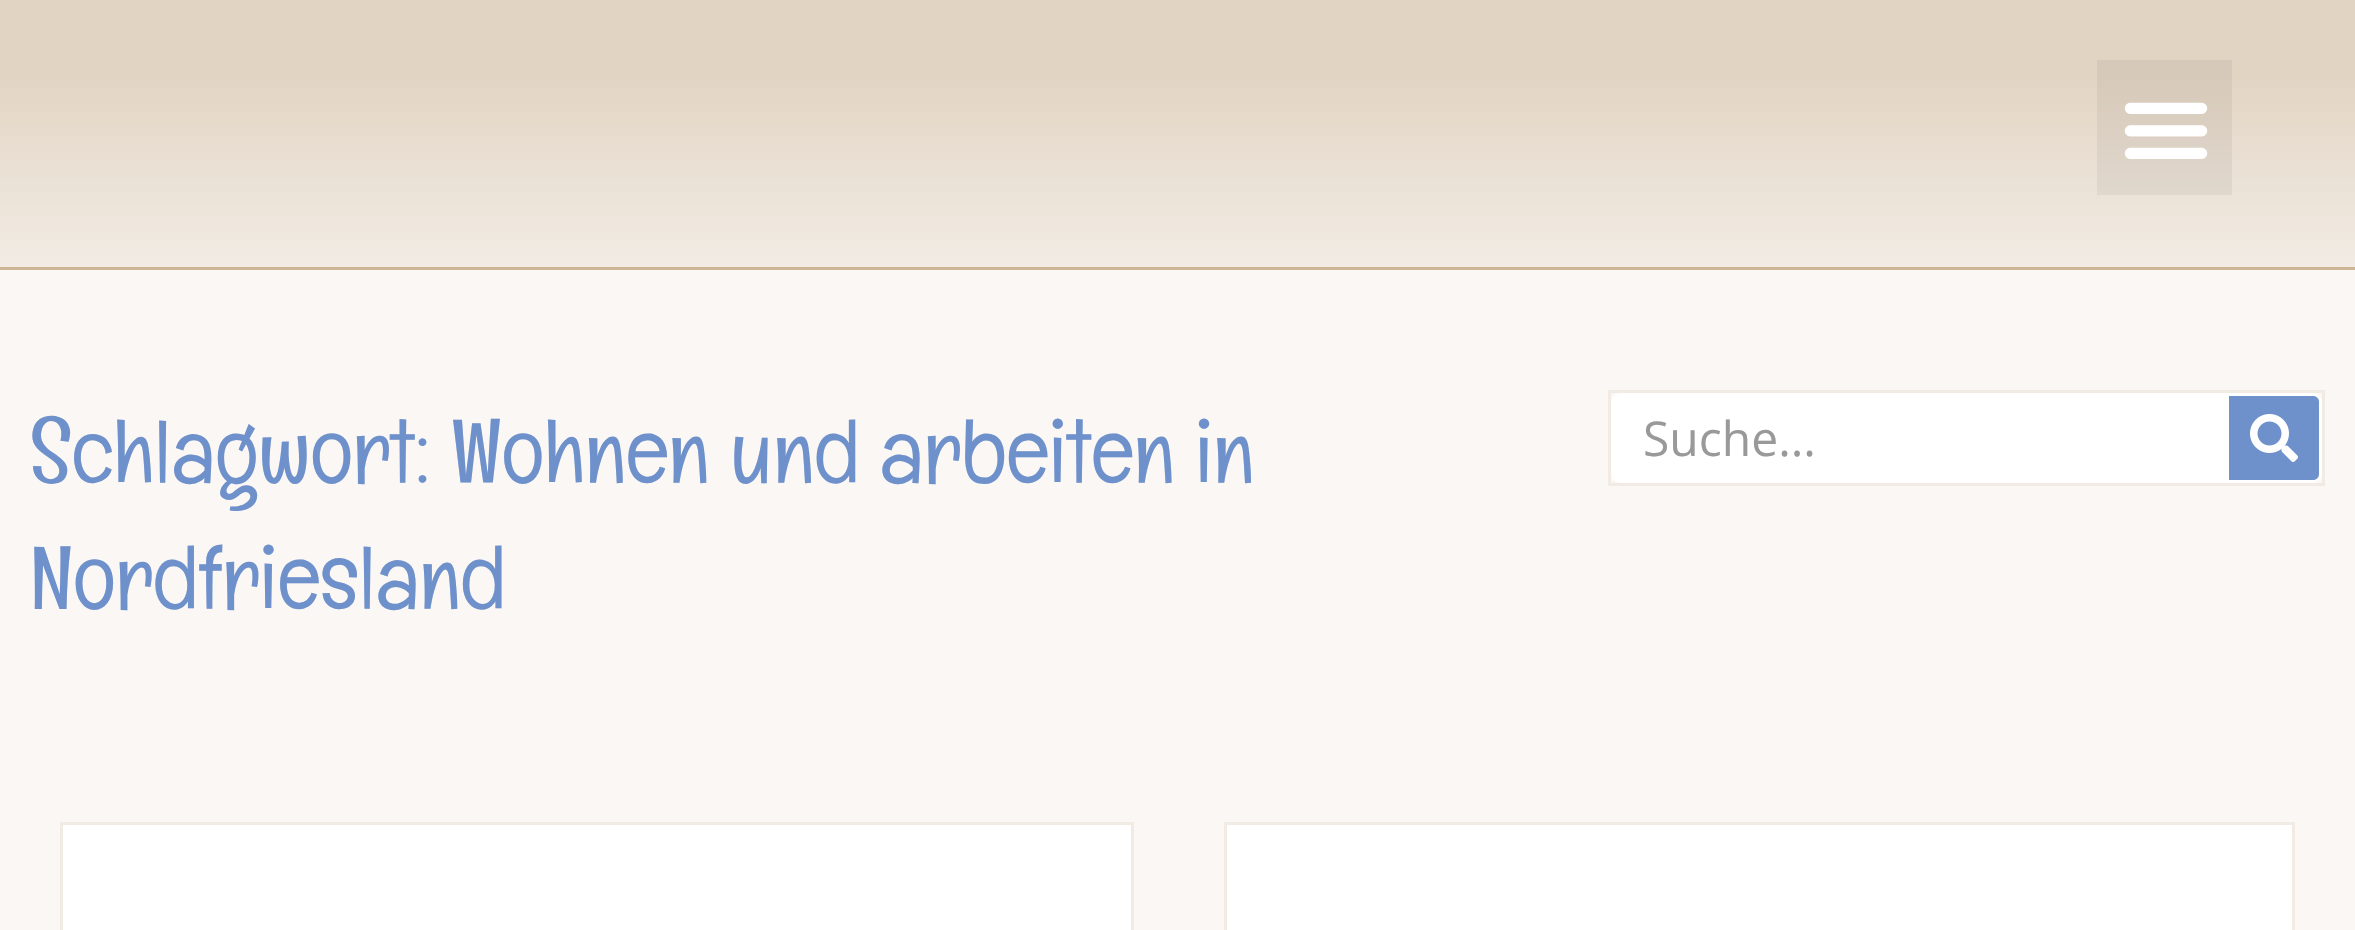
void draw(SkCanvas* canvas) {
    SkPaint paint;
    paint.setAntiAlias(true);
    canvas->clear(0xFFFAF7F4);
    {
        const SkColor colors[] = {0xFFE2D4C3, 0xFFF1EBE3};
        const float stops[] = {0.28f, 0.97f};
        const SkPoint ends[] = {{1178, 0}, {1178, 267}};
        paint.setShader(SkGradientShader::MakeLinear(ends, colors, stops, 2, SkTileMode::kClamp));
        paint.setAlpha(255);
    }
    canvas->drawRect(SkRect::MakeXYWH(0, 0, 2355, 267), paint);
    {
        const SkColor colors[] = {0xFFD7C9B9, 0xFFE5DFD8};
        const float stops[] = {0.28f, 0.97f};
        const SkPoint ends[] = {{1178, 0}, {1178, 267}};
        paint.setShader(SkGradientShader::MakeLinear(ends, colors, stops, 2, SkTileMode::kClamp));
        paint.setAlpha(255);
    }
    canvas->drawRect(SkRect::MakeXYWH(2097, 60, 135, 135), paint);
    paint.setShader(nullptr);
    paint.setColor(0xFFCDB598);
    canvas->drawRect(SkRect::MakeXYWH(0, 267, 2355, 3), paint);
    canvas->drawImageRect(SkImages::DeferredFromEncodedData(SkData::MakeFromFileName("img1.png")), SkRect::MakeXYWH(2124, 102, 84, 57), SkSamplingOptions());
    SkFont font1(fontMgr->matchFamilyStyle("Englebert", SkFontStyle::Normal()), 90);
    font1.setSubpixel(true);
    paint.setColor(0xFF6F91CB);
    canvas->drawString("Schlagwort: Wohnen und arbeiten in", 30, 483, font1, paint);
    canvas->drawString("Nordfriesland", 30, 609, font1, paint);
    paint.setStyle(SkPaint::kStroke_Style);
    paint.setStrokeWidth(3);
    paint.setColor(0xFFF1EBE3);
    canvas->drawRect(SkRect::MakeXYWH(1609.5f, 391.5f, 714, 93), paint);
    paint.setStyle(SkPaint::kFill_Style);
    paint.setColor(0xFFFFFFFF);
    canvas->drawRoundRect(SkRect::MakeXYWH(1611, 393, 711, 90), 9, 9, paint);
    SkFont font2(fontMgr->matchFamilyStyle("Open Sans", SkFontStyle::Normal()), 48);
    font2.setSubpixel(true);
    paint.setColor(0xFF999999);
    canvas->drawString("Suche...", 1643, 456, font2, paint);
    paint.setColor(0xFF6F91CB);
    canvas->drawPath(SkPathBuilder().moveTo(2229, 396).lineTo(2313, 396).cubicTo(2316.5f, 396, 2319, 398.5f, 2319, 402).lineTo(2319, 474).cubicTo(2319, 477.5f, 2316.5f, 480, 2313, 480).lineTo(2229, 480).close().detach(), paint);
    canvas->drawImageRect(SkImages::DeferredFromEncodedData(SkData::MakeFromFileName("img2.png")), SkRect::MakeXYWH(2250, 414, 48, 48), SkSamplingOptions());
    paint.setColor(0xFFFFFFFF);
    canvas->drawRect(SkRect::MakeXYWH(61.5f, 823.5f, 1071, 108), paint);
    paint.setStyle(SkPaint::kStroke_Style);
    paint.setColor(0xFFF1EBE3);
    canvas->drawRect(SkRect::MakeXYWH(61.5f, 823.5f, 1071, 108), paint);
    paint.setStyle(SkPaint::kFill_Style);
    paint.setColor(0xFFFFFFFF);
    canvas->drawRect(SkRect::MakeXYWH(1225.5f, 823.5f, 1068, 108), paint);
    paint.setStyle(SkPaint::kStroke_Style);
    paint.setColor(0xFFF1EBE3);
    canvas->drawRect(SkRect::MakeXYWH(1225.5f, 823.5f, 1068, 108), paint);
}
